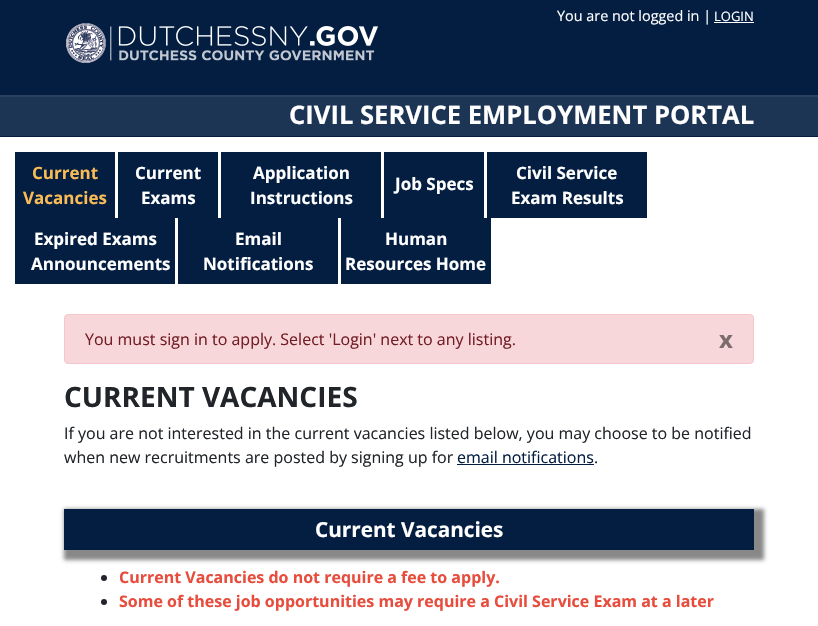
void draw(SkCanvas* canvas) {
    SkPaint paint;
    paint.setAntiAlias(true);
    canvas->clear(0xFFFFFFFF);
    paint.setColor(0xFF041E42);
    canvas->drawRect(SkRect::MakeXYWH(0, 0, 818, 137), paint);
    SkFont font1(fontMgr->matchFamilyStyle("Open Sans", SkFontStyle::Normal()), 14.4f);
    font1.setSubpixel(true);
    paint.setColor(0xFFFFFFFF);
    canvas->drawString("You are not logged in |", 557, 21, font1, paint);
    SkFont font2(fontMgr->matchFamilyStyle("Open Sans", SkFontStyle::Normal()), 13);
    font2.setSubpixel(true);
    canvas->drawString("LOGIN", 714, 21, font2, paint);
    canvas->drawRect(SkRect::MakeXYWH(714, 22, 40, 1), paint);
    canvas->drawImageRect(SkImages::DeferredFromEncodedData(SkData::MakeFromFileName("img1.png")), SkRect::MakeXYWH(66, 23, 312, 40), SkSamplingOptions());
    paint.setColor(0xFF1D3555);
    canvas->drawRect(SkRect::MakeXYWH(0, 97, 818, 39), paint);
    paint.setColor(0xFF2B405E);
    canvas->drawRect(SkRect::MakeXYWH(0, 95, 818, 2), paint);
    SkFont font3(fontMgr->matchFamilyStyle("Open Sans", SkFontStyle::Bold()), 25.6f);
    font3.setSubpixel(true);
    paint.setColor(0xFFFFFFFF);
    canvas->drawString("CIVIL SERVICE EMPLOYMENT PORTAL", 289, 124, font3, paint);
    paint.setColor(0xFF041E42);
    canvas->drawRect(SkRect::MakeXYWH(15, 152, 100, 66), paint);
    SkFont font4(fontMgr->matchFamilyStyle("Open Sans", SkFontStyle::Bold()), 17);
    font4.setSubpixel(true);
    paint.setColor(0xFFF9BB56);
    canvas->drawString("Current", 32, 179, font4, paint);
    canvas->drawString("Vacancies", 23, 204, font4, paint);
    paint.setColor(0xFF041E42);
    canvas->drawRect(SkRect::MakeXYWH(118, 152, 100, 66), paint);
    paint.setColor(0xFFFFFFFF);
    canvas->drawString("Current", 135, 179, font4, paint);
    canvas->drawString("Exams", 141, 204, font4, paint);
    paint.setColor(0xFF041E42);
    canvas->drawRect(SkRect::MakeXYWH(221, 152, 160, 66), paint);
    paint.setColor(0xFFFFFFFF);
    canvas->drawString("Application", 253, 179, font4, paint);
    canvas->drawString("Instructions", 250, 204, font4, paint);
    paint.setColor(0xFF041E42);
    canvas->drawRect(SkRect::MakeXYWH(384, 152, 100, 66), paint);
    paint.setColor(0xFFFFFFFF);
    canvas->drawString("Job Specs", 395, 190, font4, paint);
    paint.setColor(0xFF041E42);
    canvas->drawRect(SkRect::MakeXYWH(487, 152, 160, 66), paint);
    paint.setColor(0xFFFFFFFF);
    canvas->drawString("Civil Service", 516, 179, font4, paint);
    canvas->drawString("Exam Results", 511, 204, font4, paint);
    paint.setColor(0xFF041E42);
    canvas->drawRect(SkRect::MakeXYWH(15, 218, 160, 66), paint);
    paint.setColor(0xFFFFFFFF);
    canvas->drawString("Expired Exams", 34, 245, font4, paint);
    canvas->drawString("Announcements", 31, 270, font4, paint);
    paint.setColor(0xFF041E42);
    canvas->drawRect(SkRect::MakeXYWH(178, 218, 160, 66), paint);
    paint.setColor(0xFFFFFFFF);
    canvas->drawString("Email", 235, 245, font4, paint);
    canvas->drawString("Notifications", 203, 270, font4, paint);
    paint.setColor(0xFF041E42);
    canvas->drawRect(SkRect::MakeXYWH(341, 218, 150, 66), paint);
    paint.setColor(0xFFFFFFFF);
    canvas->drawString("Human", 385, 245, font4, paint);
    canvas->drawString("Resources Home", 345, 270, font4, paint);
    paint.setColor(0xFFF8D7DA);
    canvas->drawRoundRect(SkRect::MakeXYWH(64.5f, 314.5f, 689, 49), 3.5f, 3.5f, paint);
    paint.setStyle(SkPaint::kStroke_Style);
    paint.setStrokeWidth(1);
    paint.setColor(0xFFF5C6CB);
    canvas->drawRoundRect(SkRect::MakeXYWH(64.5f, 314.5f, 689, 49), 3.5f, 3.5f, paint);
    SkFont font5(fontMgr->matchFamilyStyle("Open Sans", SkFontStyle::Normal()), 16);
    font5.setSubpixel(true);
    paint.setStyle(SkPaint::kFill_Style);
    paint.setColor(0xFF721C24);
    canvas->drawString("You must sign in to apply. Select 'Login' next to any listing.", 85, 345, font5, paint);
    SkFont font6(fontMgr->matchFamilyStyle("Open Sans", SkFontStyle::Bold()), 24);
    font6.setSubpixel(true);
    paint.setColor(0xFF7C6C6D);
    canvas->drawString("x", 719, 348, font6, paint);
    SkFont font7(fontMgr->matchFamilyStyle("Open Sans", SkFontStyle::Bold()), 28);
    font7.setSubpixel(true);
    paint.setColor(0xFF212529);
    canvas->drawString("CURRENT VACANCIES", 64, 407, font7, paint);
    canvas->drawString("If you are not interested in the current vacancies listed below, you may choose to be notified", 64, 439, font5, paint);
    canvas->drawString("when new recruitments are posted by signing up for", 64, 463, font5, paint);
    paint.setColor(0xFF041E42);
    canvas->drawString("email notifications", 457, 463, font5, paint);
    canvas->drawRect(SkRect::MakeXYWH(457, 464, 137, 1), paint);
    paint.setColor(0xFF212529);
    canvas->drawString(".", 594, 463, font5, paint);
    paint.setColor(0xFF888888);
    paint.setMaskFilter(SkMaskFilter::MakeBlur(kNormal_SkBlurStyle, 2));
    canvas->drawRect(SkRect::MakeXYWH(64, 509, 700, 51), paint);
    paint.setMaskFilter(nullptr);
    paint.setColor(0xFF041E42);
    canvas->drawRect(SkRect::MakeXYWH(64, 509, 690, 41), paint);
    SkFont font8(fontMgr->matchFamilyStyle("Open Sans", SkFontStyle::Bold()), 20.75f);
    font8.setSubpixel(true);
    paint.setColor(0xFFFFFFFF);
    canvas->drawString("Current Vacancies", 315, 537, font8, paint);
    paint.setColor(0xFF212529);
    canvas->drawCircle(104, 578, 3, paint);
    SkFont font9(fontMgr->matchFamilyStyle("Open Sans", SkFontStyle::Bold()), 16);
    font9.setSubpixel(true);
    paint.setColor(0xFFE74C3C);
    canvas->drawString("Current Vacancies do not require a fee to apply.", 119, 583, font9, paint);
    paint.setColor(0xFF212529);
    canvas->drawCircle(104, 602, 3, paint);
    paint.setColor(0xFFE74C3C);
    canvas->drawString("Some of these job opportunities may require a Civil Service Exam at a later", 119, 607, font9, paint);
}
